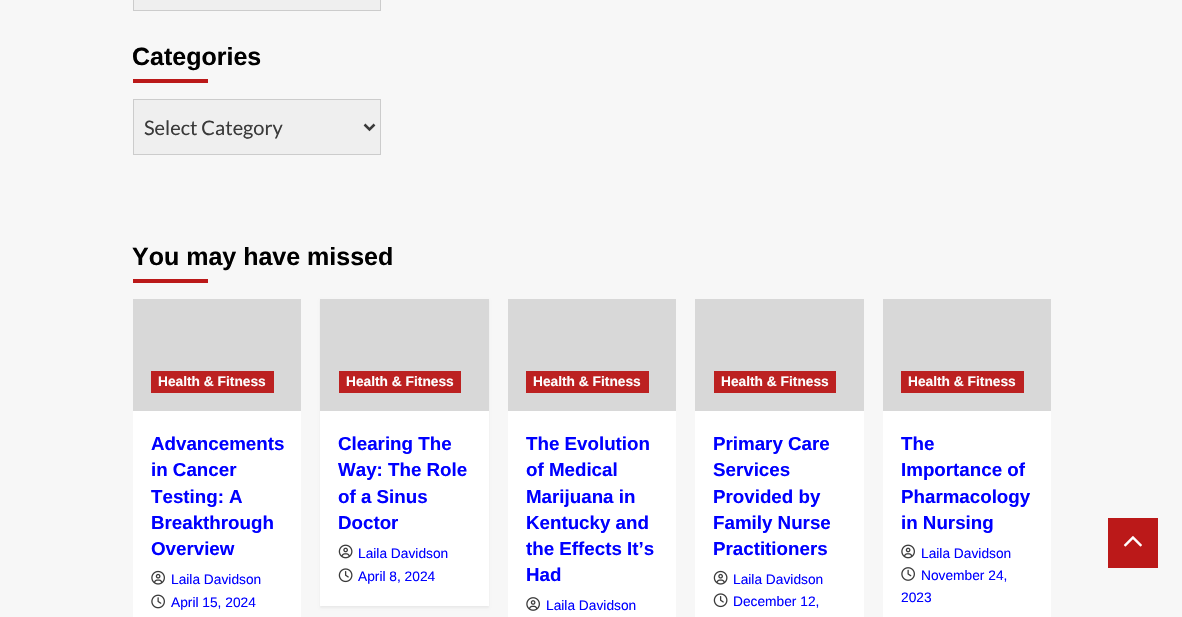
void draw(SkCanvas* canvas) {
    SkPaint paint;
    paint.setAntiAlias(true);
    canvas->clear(0xFFF7F7F7);
    paint.setColor(0xFFEFEFEF);
    canvas->drawRect(SkRect::MakeXYWH(133.5f, -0.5f, 247, 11), paint);
    paint.setStyle(SkPaint::kStroke_Style);
    paint.setStrokeWidth(1);
    paint.setColor(0xFFCCCCCC);
    canvas->drawRect(SkRect::MakeXYWH(133.5f, -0.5f, 247, 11), paint);
    SkFont font1(fontMgr->matchFamilyStyle("Liberation Sans", SkFontStyle::Bold()), 25);
    font1.setSubpixel(true);
    paint.setStyle(SkPaint::kFill_Style);
    paint.setColor(0xFF000000);
    canvas->drawString("Categories", 132, 65, font1, paint);
    paint.setColor(0xFFBB1919);
    canvas->drawRect(SkRect::MakeXYWH(133, 79, 75, 4), paint);
    paint.setColor(0xFFEFEFEF);
    canvas->drawRect(SkRect::MakeXYWH(133.5f, 99.5f, 247, 55), paint);
    paint.setStyle(SkPaint::kStroke_Style);
    paint.setColor(0xFFCCCCCC);
    canvas->drawRect(SkRect::MakeXYWH(133.5f, 99.5f, 247, 55), paint);
    paint.setStrokeWidth(2.5f);
    paint.setColor(0xFF3A3A3A);
    canvas->drawPath(SkPathBuilder().moveTo(364.5f, 124.5f).lineTo(369.5f, 129.5f).lineTo(374.5f, 124.5f).detach(), paint);
    SkFont font2(fontMgr->matchFamilyStyle("Lato", SkFontStyle::Normal()), 20);
    font2.setSubpixel(true);
    paint.setStyle(SkPaint::kFill_Style);
    canvas->drawString("Select Category", 144, 135, font2, paint);
    paint.setColor(0xFF000000);
    canvas->drawString("You may have missed", 132, 265, font1, paint);
    paint.setColor(0xFFBB1919);
    canvas->drawRect(SkRect::MakeXYWH(133, 279, 75, 4), paint);
    paint.setColor(0xFFFFFFFF);
    canvas->drawRect(SkRect::MakeXYWH(133, 411, 168, 206), paint);
    paint.setColor(0xFFD8D8D8);
    canvas->drawRect(SkRect::MakeXYWH(133, 299, 168, 112), paint);
    paint.setColor(0xFFBC2121);
    canvas->drawRect(SkRect::MakeXYWH(151, 371, 123, 22), paint);
    SkFont font3(fontMgr->matchFamilyStyle("Liberation Sans", SkFontStyle::Bold()), 13.75f);
    font3.setSubpixel(true);
    paint.setColor(0xFFFDFDFD);
    canvas->drawString("Health & Fitness", 158, 386, font3, paint);
    SkFont font4(fontMgr->matchFamilyStyle("Liberation Sans", SkFontStyle::Bold()), 18.75f);
    font4.setSubpixel(true);
    paint.setColor(0xFF0000FF);
    canvas->drawString("Advancements", 151, 450, font4, paint);
    canvas->drawString("in Cancer", 151, 476, font4, paint);
    canvas->drawString("Testing: A", 151, 503, font4, paint);
    canvas->drawString("Breakthrough", 151, 529, font4, paint);
    canvas->drawString("Overview", 151, 555, font4, paint);
    canvas->drawImageRect(SkImages::DeferredFromEncodedData(SkData::MakeFromFileName("img1.png")), SkRect::MakeXYWH(151, 570, 14, 15), SkSamplingOptions());
    SkFont font5(fontMgr->matchFamilyStyle("Liberation Sans", SkFontStyle::Normal()), 13.75f);
    font5.setSubpixel(true);
    canvas->drawString("Laila Davidson", 171, 584, font5, paint);
    canvas->drawImageRect(SkImages::DeferredFromEncodedData(SkData::MakeFromFileName("img2.png")), SkRect::MakeXYWH(151, 594, 14, 15), SkSamplingOptions());
    canvas->drawString("April 15, 2024", 171, 607, font5, paint);
    paint.setColor(0x0D000000);
    paint.setMaskFilter(SkMaskFilter::MakeBlur(kNormal_SkBlurStyle, 1));
    canvas->drawRect(SkRect::MakeXYWH(320, 300, 169, 308), paint);
    paint.setMaskFilter(nullptr);
    paint.setColor(0xFFFFFFFF);
    canvas->drawRect(SkRect::MakeXYWH(320, 411, 169, 195), paint);
    paint.setColor(0xFFD8D8D8);
    canvas->drawRect(SkRect::MakeXYWH(320, 299, 169, 112), paint);
    paint.setColor(0xFFBC2121);
    canvas->drawRect(SkRect::MakeXYWH(339, 371, 122, 22), paint);
    paint.setColor(0xFFFDFDFD);
    canvas->drawString("Health & Fitness", 346, 386, font3, paint);
    paint.setColor(0xFF0000FF);
    canvas->drawString("Clearing The", 338, 450, font4, paint);
    canvas->drawString("Way: The Role", 338, 476, font4, paint);
    canvas->drawString("of a Sinus", 338, 503, font4, paint);
    canvas->drawString("Doctor", 338, 529, font4, paint);
    canvas->drawImageRect(SkImages::DeferredFromEncodedData(SkData::MakeFromFileName("img3.png")), SkRect::MakeXYWH(338, 544, 15, 15), SkSamplingOptions());
    canvas->drawString("Laila Davidson", 358, 558, font5, paint);
    canvas->drawImageRect(SkImages::DeferredFromEncodedData(SkData::MakeFromFileName("img4.png")), SkRect::MakeXYWH(338, 568, 15, 15), SkSamplingOptions());
    canvas->drawString("April 8, 2024", 358, 581, font5, paint);
    paint.setColor(0xFFFFFFFF);
    canvas->drawRect(SkRect::MakeXYWH(508, 411, 168, 206), paint);
    paint.setColor(0xFFD8D8D8);
    canvas->drawRect(SkRect::MakeXYWH(508, 299, 168, 112), paint);
    paint.setColor(0xFFBC2121);
    canvas->drawRect(SkRect::MakeXYWH(526, 371, 123, 22), paint);
    paint.setColor(0xFFFDFDFD);
    canvas->drawString("Health & Fitness", 533, 386, font3, paint);
    paint.setColor(0xFF0000FF);
    canvas->drawString("The Evolution", 526, 450, font4, paint);
    canvas->drawString("of Medical", 526, 476, font4, paint);
    canvas->drawString("Marijuana in", 526, 503, font4, paint);
    canvas->drawString("Kentucky and", 526, 529, font4, paint);
    canvas->drawString("the Effects It’s", 526, 555, font4, paint);
    canvas->drawString("Had", 526, 581, font4, paint);
    canvas->drawImageRect(SkImages::DeferredFromEncodedData(SkData::MakeFromFileName("img5.png")), SkRect::MakeXYWH(526, 597, 14, 14), SkSamplingOptions());
    canvas->drawString("Laila Davidson", 546, 610, font5, paint);
    paint.setColor(0xFFFFFFFF);
    canvas->drawRect(SkRect::MakeXYWH(695, 411, 169, 206), paint);
    paint.setColor(0xFFD8D8D8);
    canvas->drawRect(SkRect::MakeXYWH(695, 299, 169, 112), paint);
    paint.setColor(0xFFBC2121);
    canvas->drawRect(SkRect::MakeXYWH(714, 371, 122, 22), paint);
    paint.setColor(0xFFFDFDFD);
    canvas->drawString("Health & Fitness", 721, 386, font3, paint);
    paint.setColor(0xFF0000FF);
    canvas->drawString("Primary Care", 713, 450, font4, paint);
    canvas->drawString("Services", 713, 476, font4, paint);
    canvas->drawString("Provided by", 713, 503, font4, paint);
    canvas->drawString("Family Nurse", 713, 529, font4, paint);
    canvas->drawString("Practitioners", 713, 555, font4, paint);
    canvas->drawImageRect(SkImages::DeferredFromEncodedData(SkData::MakeFromFileName("img6.png")), SkRect::MakeXYWH(713, 570, 15, 15), SkSamplingOptions());
    canvas->drawString("Laila Davidson", 733, 584, font5, paint);
    canvas->drawImageRect(SkImages::DeferredFromEncodedData(SkData::MakeFromFileName("img4.png")), SkRect::MakeXYWH(713, 593, 15, 15), SkSamplingOptions());
    canvas->drawString("December 12,", 733, 606, font5, paint);
    paint.setColor(0xFFFFFFFF);
    canvas->drawRect(SkRect::MakeXYWH(883, 411, 168, 206), paint);
    paint.setColor(0xFFD8D8D8);
    canvas->drawRect(SkRect::MakeXYWH(883, 299, 168, 112), paint);
    paint.setColor(0xFFBC2121);
    canvas->drawRect(SkRect::MakeXYWH(901, 371, 123, 22), paint);
    paint.setColor(0xFFFDFDFD);
    canvas->drawString("Health & Fitness", 908, 386, font3, paint);
    paint.setColor(0xFF0000FF);
    canvas->drawString("The", 901, 450, font4, paint);
    canvas->drawString("Importance of", 901, 476, font4, paint);
    canvas->drawString("Pharmacology", 901, 503, font4, paint);
    canvas->drawString("in Nursing", 901, 529, font4, paint);
    canvas->drawImageRect(SkImages::DeferredFromEncodedData(SkData::MakeFromFileName("img7.png")), SkRect::MakeXYWH(901, 544, 14, 15), SkSamplingOptions());
    canvas->drawString("Laila Davidson", 921, 558, font5, paint);
    canvas->drawImageRect(SkImages::DeferredFromEncodedData(SkData::MakeFromFileName("img8.png")), SkRect::MakeXYWH(901, 567, 14, 14), SkSamplingOptions());
    canvas->drawString("November 24,", 921, 580, font5, paint);
    canvas->drawString("2023", 901, 602, font5, paint);
    paint.setColor(0xFFBB1919);
    canvas->drawRect(SkRect::MakeXYWH(1108, 518, 50, 50), paint);
    canvas->drawImageRect(SkImages::DeferredFromEncodedData(SkData::MakeFromFileName("img9.png")), SkRect::MakeXYWH(1123, 536, 19, 11), SkSamplingOptions());
}
